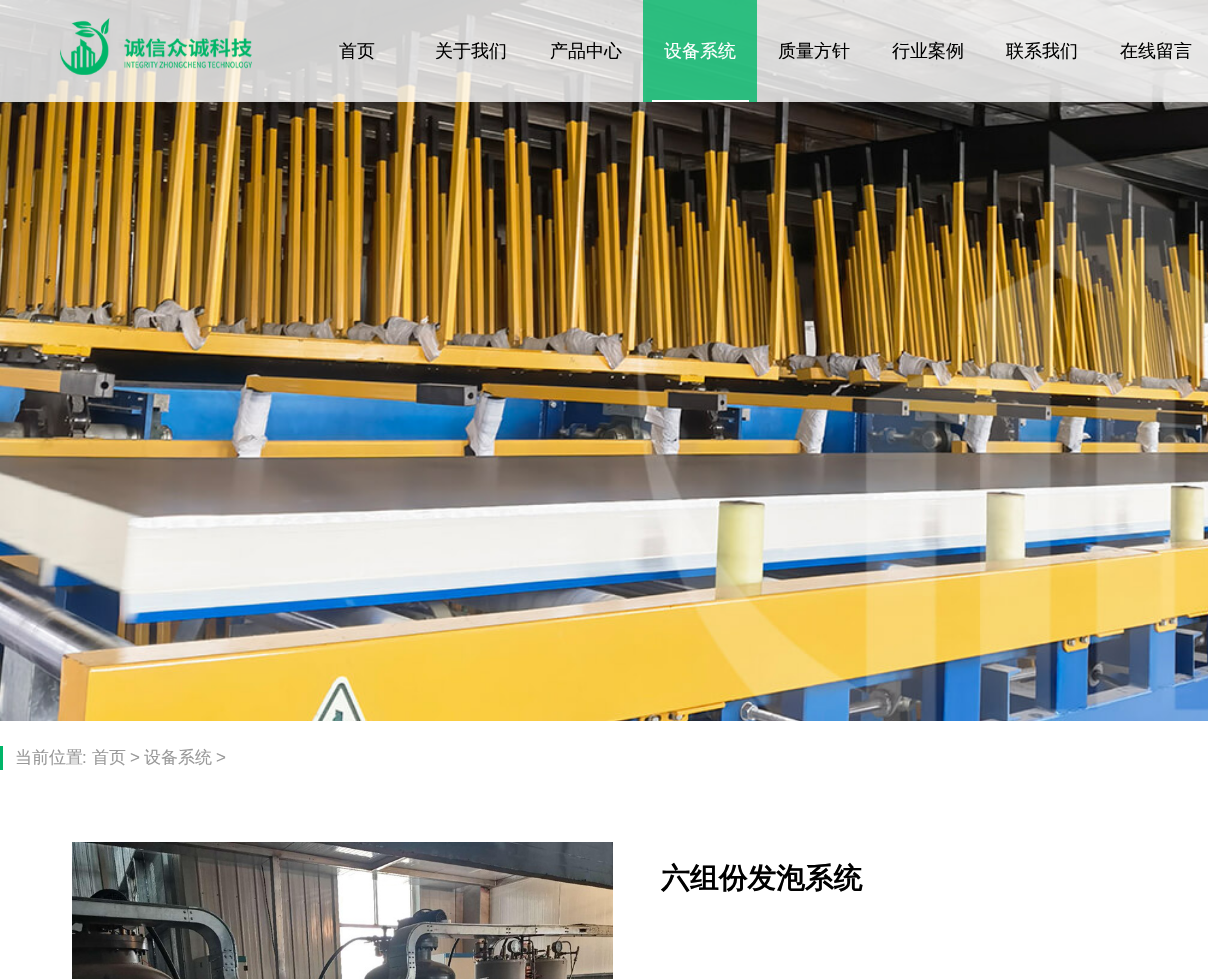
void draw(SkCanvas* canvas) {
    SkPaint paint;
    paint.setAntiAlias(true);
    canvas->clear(0xFFFFFFFF);
    canvas->drawImageRect(SkImages::DeferredFromEncodedData(SkData::MakeFromFileName("img2.png")), SkRect::MakeXYWH(0, 0, 1208, 721), SkSamplingOptions());
    paint.setColor(0xCCFFFFFF);
    canvas->drawRect(SkRect::MakeXYWH(0, 0, 1208, 102), paint);
    canvas->drawImageRect(SkImages::DeferredFromEncodedData(SkData::MakeFromFileName("img1.png")), SkRect::MakeXYWH(60, 18, 192, 57), SkSamplingOptions());
    SkFont font1(fontMgr->matchFamilyStyle("WenQuanYi Zen Hei", SkFontStyle(500, SkFontStyle::kNormal_Width, SkFontStyle::kUpright_Slant)), 18);
    font1.setSubpixel(true);
    paint.setColor(0xFF000000);
    canvas->drawString("首页", 339, 57, font1, paint);
    canvas->drawString("关于我们", 435, 57, font1, paint);
    canvas->drawString("产品中心", 550, 57, font1, paint);
    paint.setColor(0xCC00B568);
    canvas->drawRect(SkRect::MakeXYWH(643, 0, 114, 102), paint);
    paint.setColor(0xFFFFFFFF);
    canvas->drawString("设备系统", 664, 57, font1, paint);
    canvas->drawRect(SkRect::MakeXYWH(652, 100, 97, 2), paint);
    paint.setColor(0xFF000000);
    canvas->drawString("质量方针", 778, 57, font1, paint);
    canvas->drawString("行业案例", 892, 57, font1, paint);
    canvas->drawString("联系我们", 1006, 57, font1, paint);
    canvas->drawString("在线留言", 1120, 57, font1, paint);
    paint.setColor(0xFF00B568);
    canvas->drawRect(SkRect::MakeXYWH(0, 746, 3, 24), paint);
    SkFont font2(fontMgr->matchFamilyStyle("WenQuanYi Zen Hei", SkFontStyle(500, SkFontStyle::kNormal_Width, SkFontStyle::kUpright_Slant)), 17);
    font2.setSubpixel(true);
    paint.setColor(0xFF999999);
    canvas->drawString("当前位置", 15, 763, font2, paint);
    SkFont font3(fontMgr->matchFamilyStyle("Liberation Sans", SkFontStyle::Normal()), 17);
    font3.setSubpixel(true);
    canvas->drawString(":", 82, 763, font3, paint);
    canvas->drawString("首页", 92, 763, font2, paint);
    canvas->drawString(">", 130, 763, font3, paint);
    canvas->drawString("设备系统", 144, 763, font2, paint);
    canvas->drawString(">", 216, 763, font3, paint);
    canvas->drawImageRect(SkImages::DeferredFromEncodedData(SkData::MakeFromFileName("img3.png")), SkRect::MakeXYWH(72, 842, 541, 137), SkSamplingOptions());
    SkFont font4(fontMgr->matchFamilyStyle("WenQuanYi Zen Hei", SkFontStyle::Bold()), 28.75f);
    font4.setSubpixel(true);
    paint.setColor(0xFF000000);
    canvas->drawString("六组份发泡系统", 661, 888, font4, paint);
}
